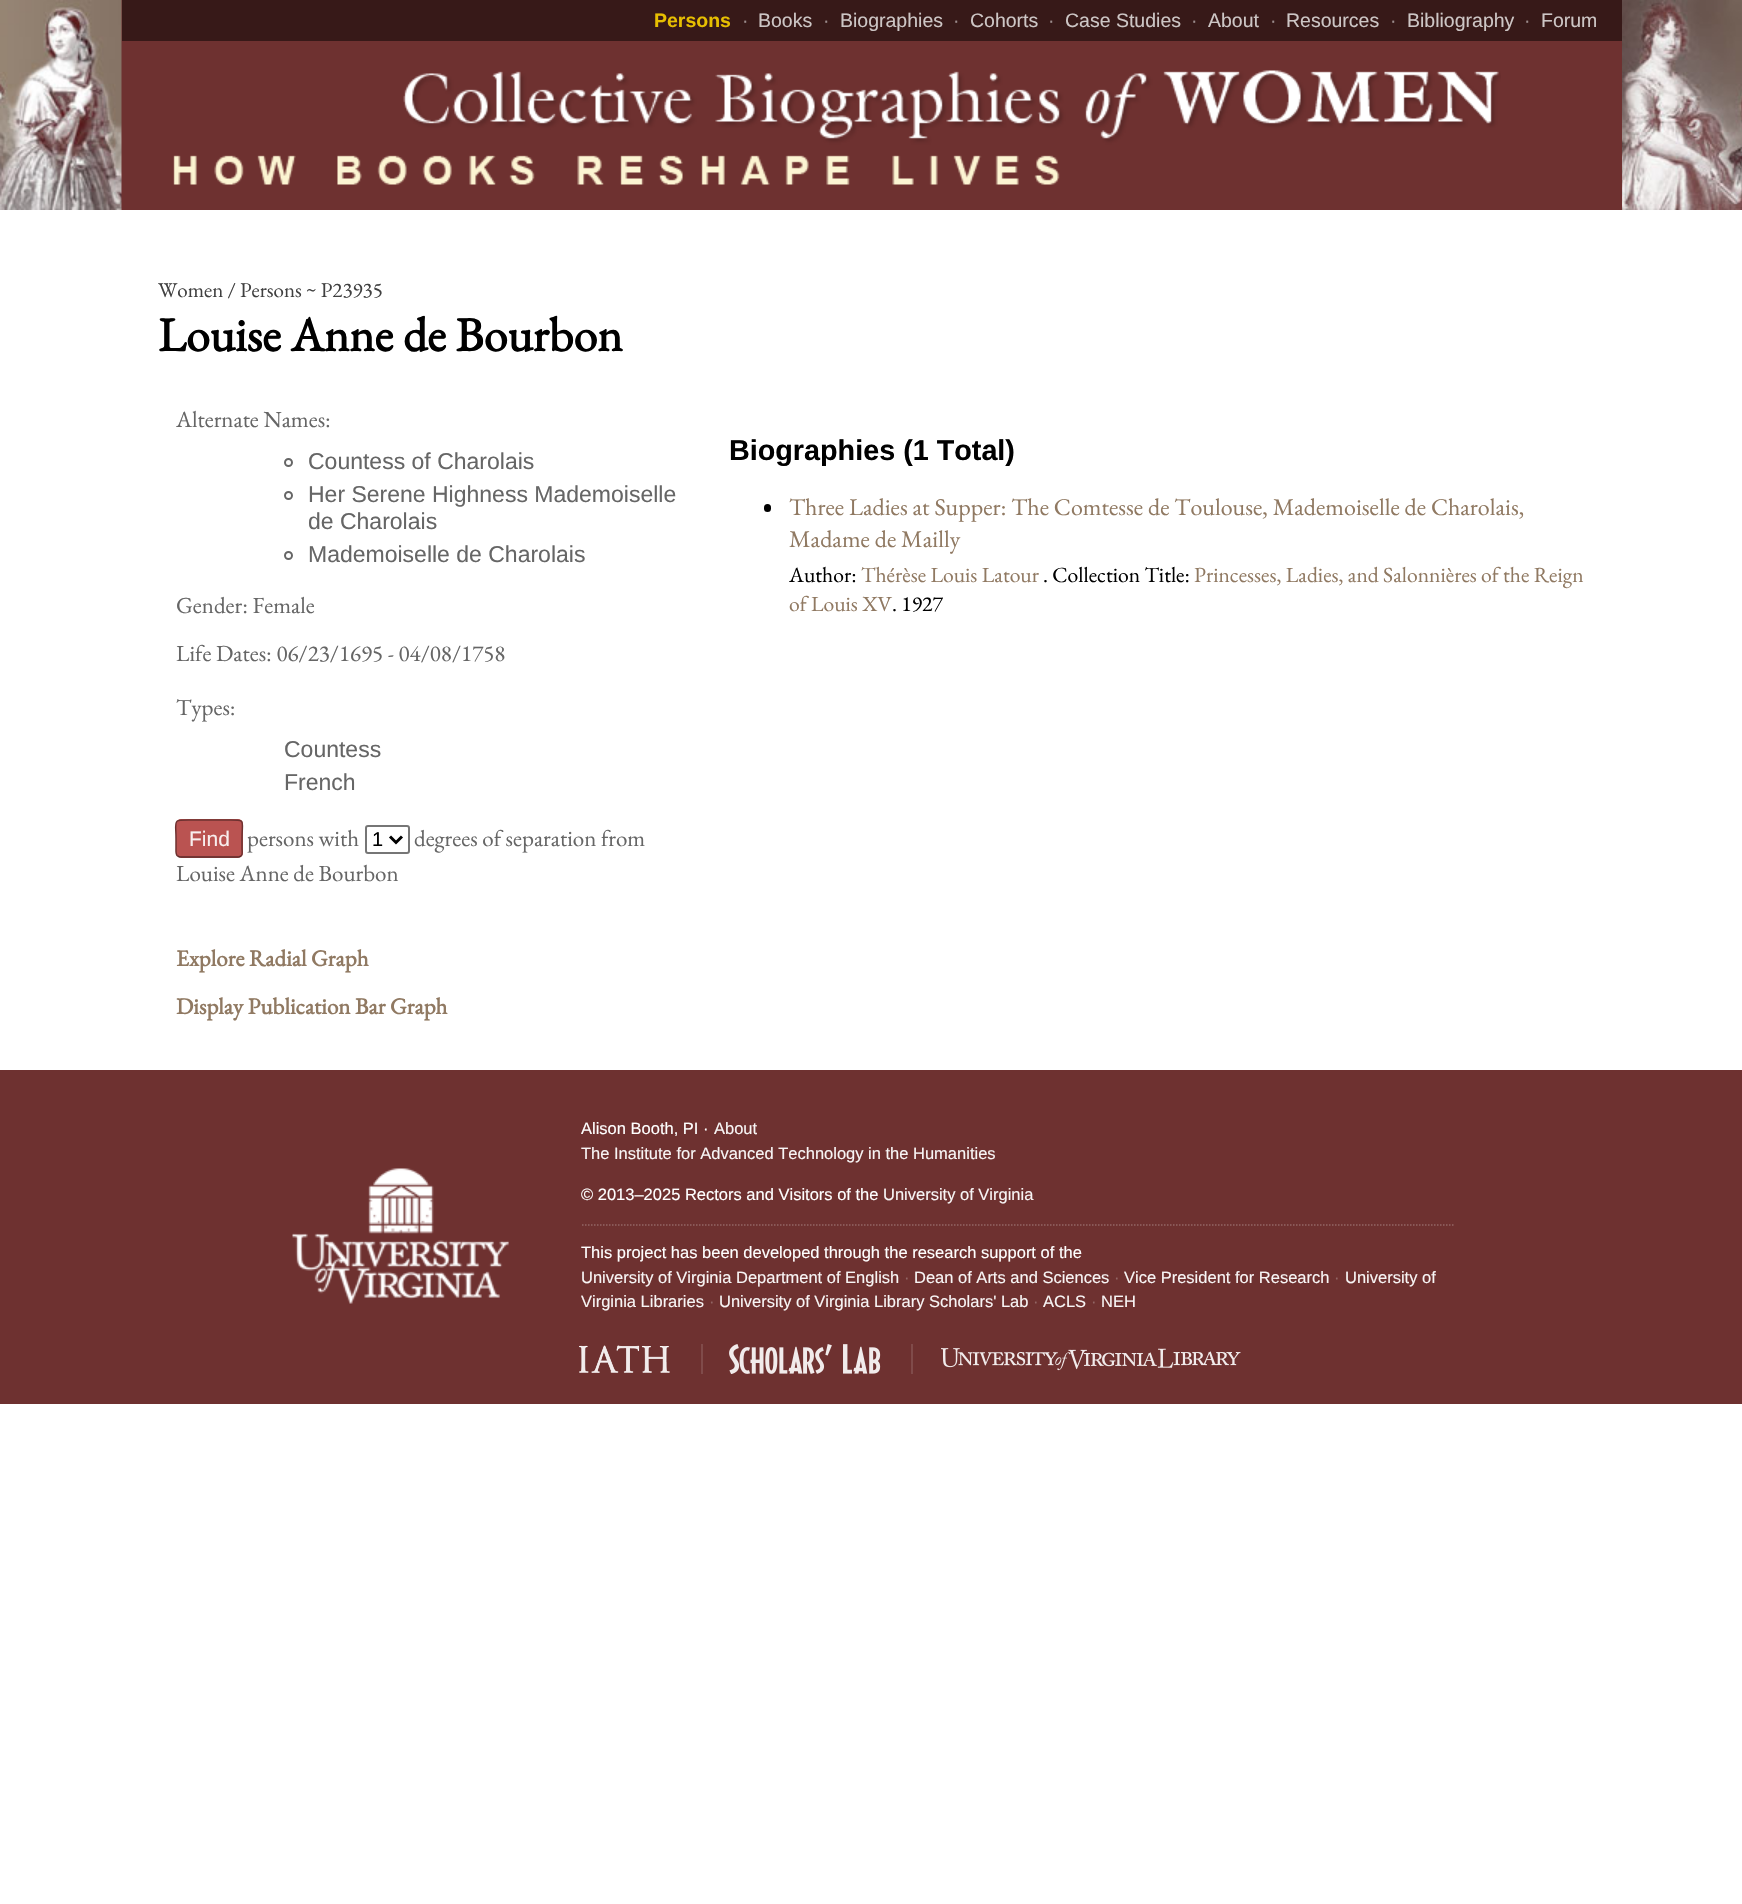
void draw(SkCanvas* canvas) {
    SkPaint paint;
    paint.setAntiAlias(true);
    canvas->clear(0xFFFFFFFF);
    canvas->drawImageRect(SkImages::DeferredFromEncodedData(SkData::MakeFromFileName("img1.png")), SkRect::MakeXYWH(0, 0, 1742, 210), SkSamplingOptions());
    paint.setColor(0xFF6E3130);
    canvas->drawRect(SkRect::MakeXYWH(1501, 41, 121, 169), paint);
    canvas->drawImageRect(SkImages::DeferredFromEncodedData(SkData::MakeFromFileName("img2.png")), SkRect::MakeXYWH(121, 0, 1380, 210), SkSamplingOptions());
    paint.setColor(0xFF371918);
    canvas->drawRect(SkRect::MakeXYWH(122, 0, 1500, 41), paint);
    SkFont font1(fontMgr->matchFamilyStyle("Liberation Sans", SkFontStyle::Bold()), 19.5f);
    font1.setSubpixel(true);
    paint.setColor(0xFFE7BF01);
    canvas->drawString("Persons", 654, 27, font1, paint);
    SkFont font2(fontMgr->matchFamilyStyle("Liberation Sans", SkFontStyle::Normal()), 19.5f);
    font2.setSubpixel(true);
    paint.setColor(0xFF9B8C8C);
    canvas->drawString("·", 742, 27, font2, paint);
    paint.setColor(0xFFCDC6C5);
    canvas->drawString("Books", 758, 27, font2, paint);
    paint.setColor(0xFF9B8C8C);
    canvas->drawString("·", 823, 27, font2, paint);
    paint.setColor(0xFFCDC6C5);
    canvas->drawString("Biographies", 840, 27, font2, paint);
    paint.setColor(0xFF9B8C8C);
    canvas->drawString("·", 953, 27, font2, paint);
    paint.setColor(0xFFCDC6C5);
    canvas->drawString("Cohorts", 970, 27, font2, paint);
    paint.setColor(0xFF9B8C8C);
    canvas->drawString("·", 1048, 27, font2, paint);
    paint.setColor(0xFFCDC6C5);
    canvas->drawString("Case Studies", 1065, 27, font2, paint);
    paint.setColor(0xFF9B8C8C);
    canvas->drawString("·", 1191, 27, font2, paint);
    paint.setColor(0xFFCDC6C5);
    canvas->drawString("About", 1208, 27, font2, paint);
    paint.setColor(0xFF9B8C8C);
    canvas->drawString("·", 1270, 27, font2, paint);
    paint.setColor(0xFFCDC6C5);
    canvas->drawString("Resources", 1286, 27, font2, paint);
    paint.setColor(0xFF9B8C8C);
    canvas->drawString("·", 1390, 27, font2, paint);
    paint.setColor(0xFFCDC6C5);
    canvas->drawString("Bibliography", 1407, 27, font2, paint);
    paint.setColor(0xFF9B8C8C);
    canvas->drawString("·", 1524, 27, font2, paint);
    paint.setColor(0xFFCDC6C5);
    canvas->drawString("Forum", 1541, 27, font2, paint);
    SkFont font3(fontMgr->matchFamilyStyle("EB Garamond", SkFontStyle::Normal()), 21);
    font3.setSubpixel(true);
    paint.setColor(0xFF404040);
    canvas->drawString("Women / Persons ~ P23935", 158, 297, font3, paint);
    SkFont font4(fontMgr->matchFamilyStyle("EB Garamond", SkFontStyle::Bold()), 48);
    font4.setSubpixel(true);
    paint.setColor(0xFF000000);
    canvas->drawString("Louise Anne de Bourbon", 158, 351, font4, paint);
    SkFont font5(fontMgr->matchFamilyStyle("EB Garamond", SkFontStyle::Normal()), 23);
    font5.setSubpixel(true);
    paint.setColor(0xFF666666);
    canvas->drawString("Alternate Names:", 176, 427, font5, paint);
    paint.setStyle(SkPaint::kStroke_Style);
    paint.setStrokeWidth(2);
    canvas->drawCircle(288.5f, 462.5f, 3.5f, paint);
    SkFont font6(fontMgr->matchFamilyStyle("Liberation Sans", SkFontStyle::Normal()), 23);
    font6.setSubpixel(true);
    paint.setStyle(SkPaint::kFill_Style);
    canvas->drawString("Countess of Charolais", 308, 469, font6, paint);
    paint.setStyle(SkPaint::kStroke_Style);
    canvas->drawCircle(288.5f, 495.5f, 3.5f, paint);
    paint.setStyle(SkPaint::kFill_Style);
    canvas->drawString("Her Serene Highness Mademoiselle", 308, 502, font6, paint);
    canvas->drawString("de Charolais", 308, 529, font6, paint);
    paint.setStyle(SkPaint::kStroke_Style);
    canvas->drawCircle(288.5f, 555.5f, 3.5f, paint);
    paint.setStyle(SkPaint::kFill_Style);
    canvas->drawString("Mademoiselle de Charolais", 308, 562, font6, paint);
    canvas->drawString("Gender: Female", 176, 613, font5, paint);
    canvas->drawString("Life Dates: 06/23/1695 - 04/08/1758", 176, 661, font5, paint);
    canvas->drawString("Types:", 176, 715, font5, paint);
    canvas->drawString("Countess", 284, 757, font6, paint);
    canvas->drawString("French", 284, 790, font6, paint);
    paint.setColor(0xFFBA5351);
    canvas->drawRoundRect(SkRect::MakeXYWH(176, 819, 67, 39), 5, 5, paint);
    paint.setStyle(SkPaint::kStroke_Style);
    paint.setStrokeWidth(1.5f);
    paint.setColor(0x80000000);
    canvas->drawPath(SkPathBuilder().moveTo(241, 856).lineTo(239, 857).lineTo(179.5f, 857).lineTo(177.5f, 856).detach(), paint);
    paint.setColor(0xFF6E3130);
    canvas->drawPath(SkPathBuilder().moveTo(177.5f, 856).cubicTo(175.5f, 854.5f, 176, 850.5f, 176, 848.5f).lineTo(176, 838.5f).cubicTo(176, 819.5f, 172, 820, 190, 820).lineTo(229, 820).cubicTo(246.5f, 820, 242, 819.5f, 242, 838.5f).lineTo(242, 848.5f).cubicTo(242, 850.5f, 243, 854.5f, 241, 856).detach(), paint);
    SkFont font7(fontMgr->matchFamilyStyle("Liberation Sans", SkFontStyle::Normal()), 21);
    font7.setSubpixel(true);
    paint.setStyle(SkPaint::kFill_Style);
    paint.setColor(0xFFF8EEEE);
    canvas->drawString("Find", 189, 846, font7, paint);
    paint.setColor(0xFF666666);
    canvas->drawString("persons with", 247, 846, font5, paint);
    paint.setStyle(SkPaint::kStroke_Style);
    paint.setStrokeWidth(2);
    paint.setColor(0xFF767676);
    canvas->drawRoundRect(SkRect::MakeXYWH(366, 826, 43, 27), 2, 2, paint);
    paint.setStrokeWidth(3);
    paint.setColor(0xFF000000);
    canvas->drawPath(SkPathBuilder().moveTo(390, 836.5f).lineTo(396, 842.5f).lineTo(402, 836.5f).detach(), paint);
    SkFont font8(fontMgr->matchFamilyStyle("Liberation Sans", SkFontStyle::Normal()), 20);
    font8.setSubpixel(true);
    paint.setStyle(SkPaint::kFill_Style);
    canvas->drawString("1", 372, 846, font8, paint);
    paint.setColor(0xFF666666);
    canvas->drawString("degrees of separation from", 414, 846, font5, paint);
    canvas->drawString("Louise Anne de Bourbon", 176, 881, font5, paint);
    SkFont font9(fontMgr->matchFamilyStyle("EB Garamond", SkFontStyle::Bold()), 23);
    font9.setSubpixel(true);
    paint.setColor(0xFF907962);
    canvas->drawString("Explore Radial Graph", 176, 966, font9, paint);
    canvas->drawString("Display Publication Bar Graph", 176, 1014, font9, paint);
    SkFont font10(fontMgr->matchFamilyStyle("Liberation Sans", SkFontStyle::Bold()), 28.75f);
    font10.setSubpixel(true);
    paint.setColor(0xFF000000);
    canvas->drawString("Biographies (1 Total)", 729, 460, font10, paint);
    canvas->drawRoundRect(SkRect::MakeXYWH(764, 504, 7, 8), 3.5f, 3.5f, paint);
    SkFont font11(fontMgr->matchFamilyStyle("EB Garamond", SkFontStyle::Normal()), 24);
    font11.setSubpixel(true);
    paint.setColor(0xFF907962);
    canvas->drawString("Three Ladies at Supper: The Comtesse de Toulouse, Mademoiselle de Charolais,", 789, 515, font11, paint);
    canvas->drawString("Madame de Mailly", 789, 547, font11, paint);
    SkFont font12(fontMgr->matchFamilyStyle("EB Garamond", SkFontStyle::Normal()), 21.6f);
    font12.setSubpixel(true);
    paint.setColor(0xFF000000);
    canvas->drawString("Author:", 789, 582, font12, paint);
    paint.setColor(0xFF907962);
    canvas->drawString("Thérèse Louis Latour", 861, 582, font12, paint);
    paint.setColor(0xFF000000);
    canvas->drawString(". Collection Title:", 1043, 582, font12, paint);
    paint.setColor(0xFF907962);
    canvas->drawString("Princesses, Ladies, and Salonnières of the Reign", 1194, 582, font12, paint);
    canvas->drawString("of Louis XV", 789, 611, font12, paint);
    paint.setColor(0xFF000000);
    canvas->drawString(". 1927", 892, 611, font12, paint);
    paint.setColor(0xFF6E3130);
    canvas->drawRect(SkRect::MakeXYWH(0, 1070, 1742, 334), paint);
    canvas->drawImageRect(SkImages::DeferredFromEncodedData(SkData::MakeFromFileName("img3.png")), SkRect::MakeXYWH(292, 1168, 217, 136), SkSamplingOptions());
    SkFont font13(fontMgr->matchFamilyStyle("Liberation Sans", SkFontStyle::Normal()), 16.5f);
    font13.setSubpixel(true);
    paint.setColor(0xFFFFFFFF);
    canvas->drawString("Alison Booth, PI ·", 581, 1134, font13, paint);
    paint.setColor(0xFFF8F5F5);
    canvas->drawString("About", 714, 1134, font13, paint);
    canvas->drawString("The Institute for Advanced Technology in the Humanities", 581, 1159, font13, paint);
    paint.setColor(0xFFFFFFFF);
    canvas->drawString("© 2013–2025 Rectors and Visitors of the", 581, 1200, font13, paint);
    paint.setColor(0xFFF8F5F5);
    canvas->drawString("University of Virginia", 883, 1200, font13, paint);
    paint.setStyle(SkPaint::kStroke_Style);
    paint.setStrokeWidth(1.5f);
    paint.setColor(0xFF926564);
    paint.setPathEffect(SkDashPathEffect::Make({{1.5f, 1.5f}}, 0));
    canvas->drawPath(SkPathBuilder().moveTo(582, 1225).lineTo(1453.5f, 1225).detach(), paint);
    paint.setPathEffect(nullptr);
    paint.setStyle(SkPaint::kFill_Style);
    paint.setColor(0xFFFFFFFF);
    canvas->drawString("This project has been developed through the research support of the", 581, 1258, font13, paint);
    paint.setColor(0xFFF8F5F5);
    canvas->drawString("University of Virginia Department of English", 581, 1283, font13, paint);
    paint.setColor(0xFF926564);
    canvas->drawString("·", 904, 1283, font13, paint);
    paint.setColor(0xFFF8F5F5);
    canvas->drawString("Dean of Arts and Sciences", 914, 1283, font13, paint);
    paint.setColor(0xFF926564);
    canvas->drawString("·", 1114, 1283, font13, paint);
    paint.setColor(0xFFF8F5F5);
    canvas->drawString("Vice President for Research", 1124, 1283, font13, paint);
    paint.setColor(0xFF926564);
    canvas->drawString("·", 1334, 1283, font13, paint);
    paint.setColor(0xFFF8F5F5);
    canvas->drawString("University of", 1345, 1283, font13, paint);
    canvas->drawString("Virginia Libraries", 581, 1307, font13, paint);
    paint.setColor(0xFF926564);
    canvas->drawString("·", 709, 1307, font13, paint);
    paint.setColor(0xFFF8F5F5);
    canvas->drawString("University of Virginia Library Scholars' Lab", 719, 1307, font13, paint);
    paint.setColor(0xFF926564);
    canvas->drawString("·", 1033, 1307, font13, paint);
    paint.setColor(0xFFF8F5F5);
    canvas->drawString("ACLS", 1043, 1307, font13, paint);
    paint.setColor(0xFF926564);
    canvas->drawString("·", 1091, 1307, font13, paint);
    paint.setColor(0xFFF8F5F5);
    canvas->drawString("NEH", 1101, 1307, font13, paint);
    canvas->drawImageRect(SkImages::DeferredFromEncodedData(SkData::MakeFromFileName("img4.png")), SkRect::MakeXYWH(579, 1345, 91, 28), SkSamplingOptions());
    paint.setColor(0xFF804B4A);
    canvas->drawRect(SkRect::MakeXYWH(701, 1344, 2, 30), paint);
    canvas->drawImageRect(SkImages::DeferredFromEncodedData(SkData::MakeFromFileName("img5.png")), SkRect::MakeXYWH(729, 1344, 152, 30), SkSamplingOptions());
    canvas->drawRect(SkRect::MakeXYWH(911, 1344, 2, 30), paint);
    canvas->drawImageRect(SkImages::DeferredFromEncodedData(SkData::MakeFromFileName("img6.png")), SkRect::MakeXYWH(941, 1348, 300, 23), SkSamplingOptions());
}
